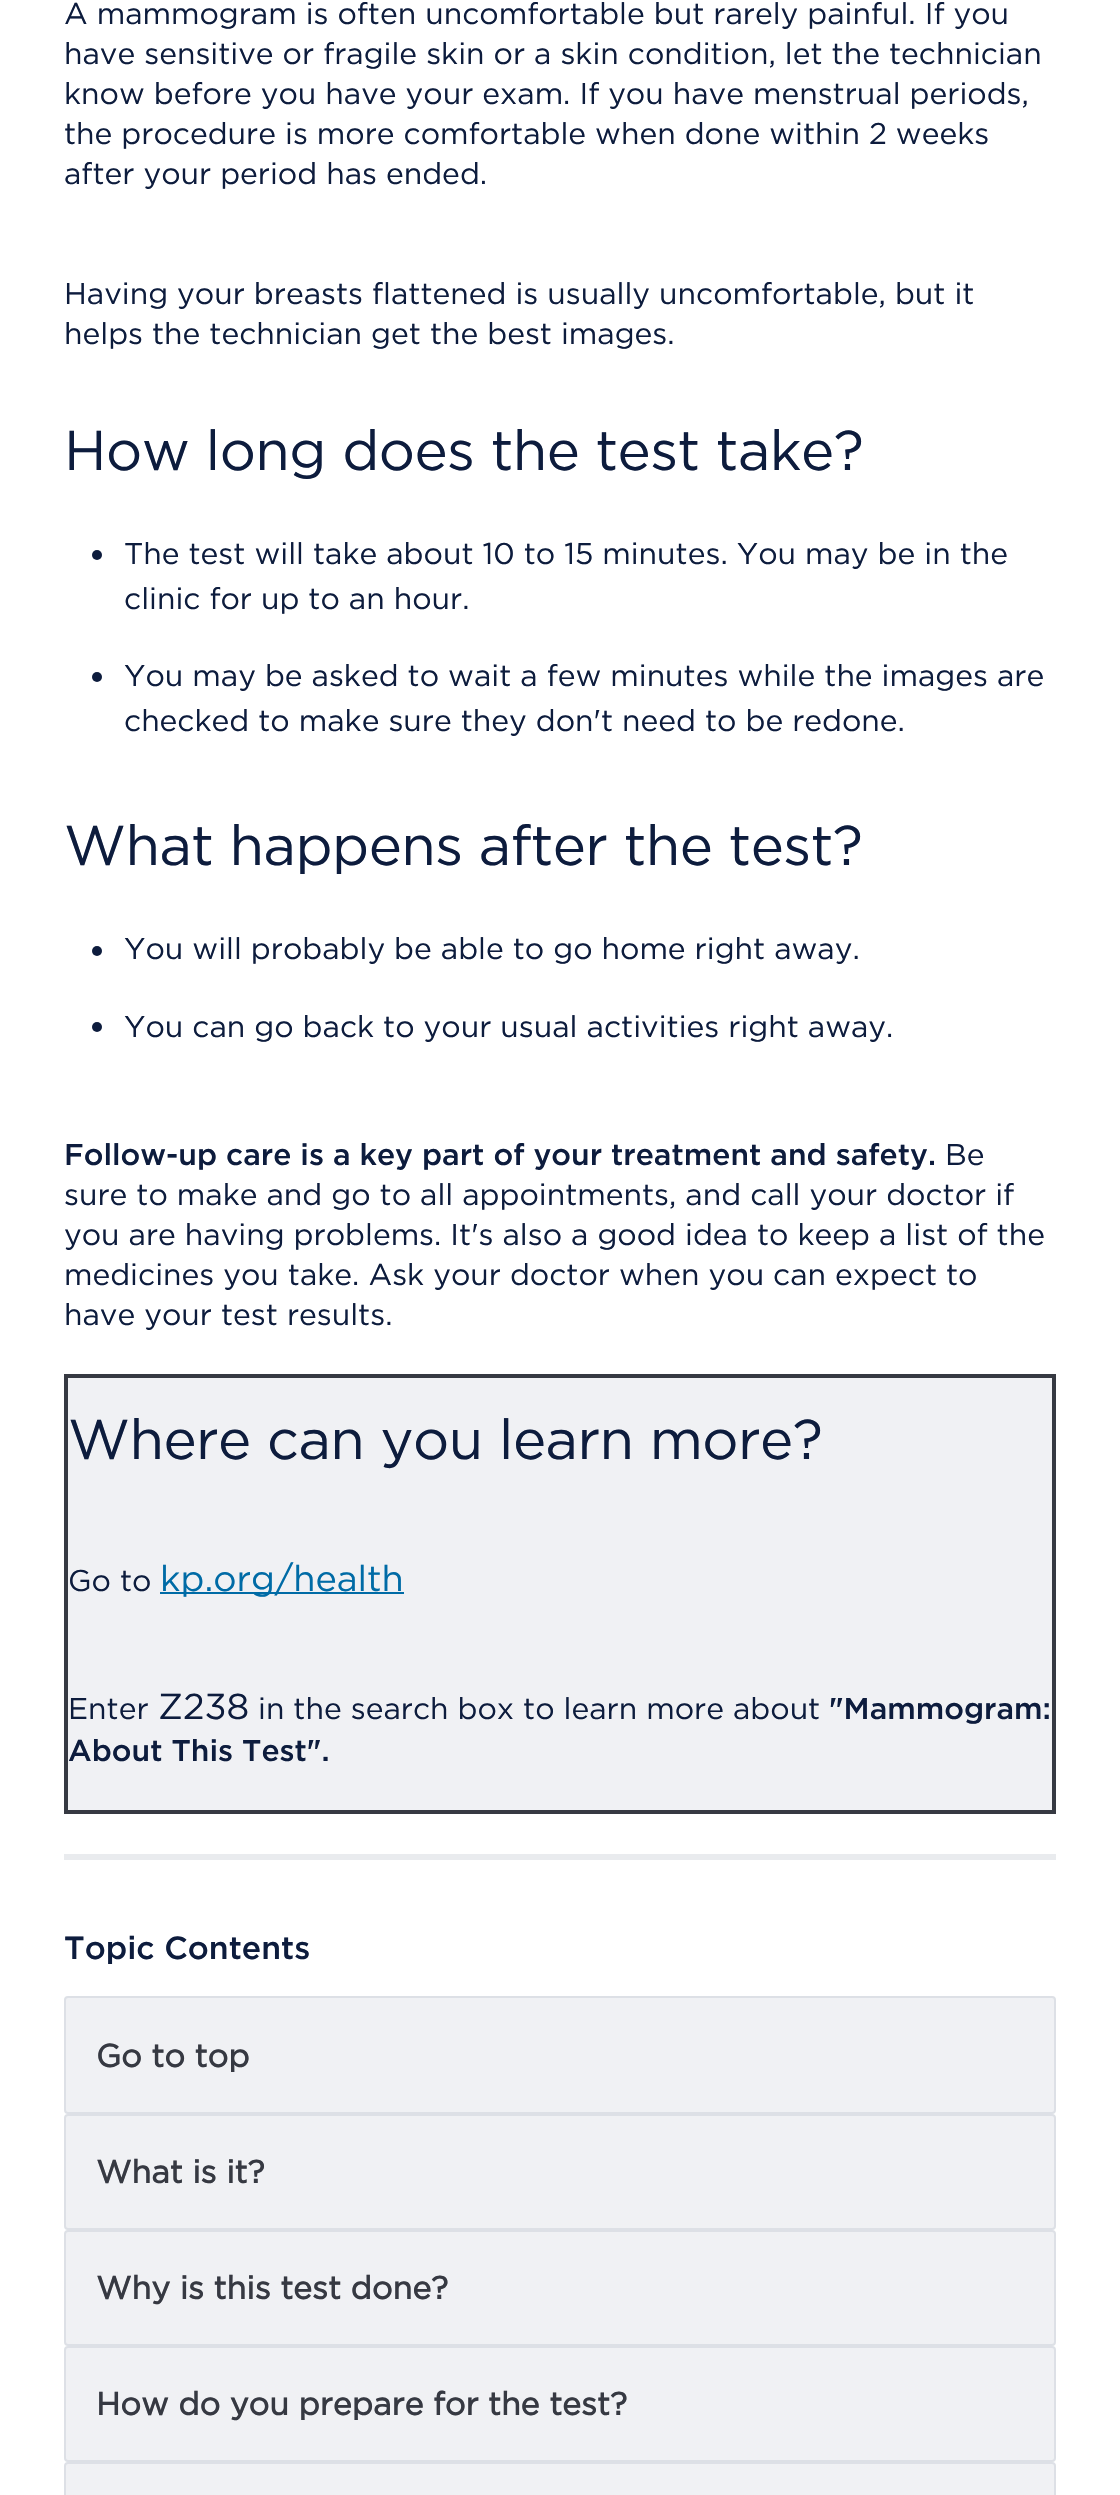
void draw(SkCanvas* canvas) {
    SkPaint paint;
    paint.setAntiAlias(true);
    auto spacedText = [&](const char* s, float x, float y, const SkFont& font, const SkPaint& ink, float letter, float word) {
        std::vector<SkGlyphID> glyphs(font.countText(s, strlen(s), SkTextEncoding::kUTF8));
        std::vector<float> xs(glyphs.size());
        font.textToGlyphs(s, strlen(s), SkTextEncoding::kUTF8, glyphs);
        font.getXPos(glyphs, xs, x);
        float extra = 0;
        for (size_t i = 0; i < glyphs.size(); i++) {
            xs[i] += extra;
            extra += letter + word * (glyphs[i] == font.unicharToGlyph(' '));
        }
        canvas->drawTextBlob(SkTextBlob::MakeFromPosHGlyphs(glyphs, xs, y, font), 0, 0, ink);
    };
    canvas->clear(0xFFFFFFFF);
    SkFont font1(fontMgr->matchFamilyStyle("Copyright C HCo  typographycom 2", SkFontStyle(300, SkFontStyle::kNormal_Width, SkFontStyle::kUpright_Slant)), 30);
    font1.setSubpixel(true);
    paint.setColor(0xFF0D1C3D);
    canvas->drawString("A mammogram is often uncomfortable but rarely painful. If you", 64, 24, font1, paint);
    canvas->drawString("have sensitive or fragile skin or a skin condition, let the technician", 64, 64, font1, paint);
    canvas->drawString("know before you have your exam. If you have menstrual periods,", 64, 104, font1, paint);
    canvas->drawString("the procedure is more comfortable when done within 2 weeks", 64, 144, font1, paint);
    canvas->drawString("after your period has ended.", 64, 184, font1, paint);
    canvas->drawString("Having your breasts flattened is usually uncomfortable, but it", 64, 304, font1, paint);
    canvas->drawString("helps the technician get the best images.", 64, 344, font1, paint);
    SkFont font2(fontMgr->matchFamilyStyle("Copyright C HCo  typographycom 2", SkFontStyle(300, SkFontStyle::kNormal_Width, SkFontStyle::kUpright_Slant)), 56);
    font2.setSubpixel(true);
    spacedText("How long does the test take?", 64, 470, font2, paint, -0.55f, 0);
    canvas->drawCircle(97, 555, 5, paint);
    canvas->drawString("The test will take about 10 to 15 minutes. You may be in the", 124, 564, font1, paint);
    canvas->drawString("clinic for up to an hour.", 124, 609, font1, paint);
    canvas->drawCircle(97, 677, 5, paint);
    canvas->drawString("You may be asked to wait a few minutes while the images are", 124, 686, font1, paint);
    canvas->drawString("checked to make sure they don't need to be redone.", 124, 731, font1, paint);
    spacedText("What happens after the test?", 64, 865, font2, paint, -0.55f, 0);
    canvas->drawCircle(97, 951, 5, paint);
    canvas->drawString("You will probably be able to go home right away.", 124, 959, font1, paint);
    canvas->drawCircle(97, 1027, 5, paint);
    canvas->drawString("You can go back to your usual activities right away.", 124, 1037, font1, paint);
    SkFont font3(fontMgr->matchFamilyStyle("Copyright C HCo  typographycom", SkFontStyle(300, SkFontStyle::kNormal_Width, SkFontStyle::kUpright_Slant)), 30);
    font3.setSubpixel(true);
    canvas->drawString("Follow-up care is a key part of your treatment and safety.", 64, 1165, font3, paint);
    canvas->drawString("Be", 945, 1165, font1, paint);
    canvas->drawString("sure to make and go to all appointments, and call your doctor if", 64, 1205, font1, paint);
    canvas->drawString("you are having problems. It's also a good idea to keep a list of the", 64, 1245, font1, paint);
    canvas->drawString("medicines you take. Ask your doctor when you can expect to", 64, 1285, font1, paint);
    canvas->drawString("have your test results.", 64, 1325, font1, paint);
    paint.setColor(0xFFF0F1F4);
    canvas->drawRect(SkRect::MakeXYWH(66, 1376, 988, 436), paint);
    paint.setStyle(SkPaint::kStroke_Style);
    paint.setStrokeWidth(4);
    paint.setColor(0xFF363942);
    canvas->drawRect(SkRect::MakeXYWH(66, 1376, 988, 436), paint);
    paint.setStyle(SkPaint::kFill_Style);
    paint.setColor(0xFF0D1C3D);
    spacedText("Where can you learn more?", 68, 1459, font2, paint, -0.55f, 0);
    canvas->drawString("Go to", 68, 1591, font1, paint);
    paint.setColor(0xFF006BA6);
    canvas->drawRect(SkRect::MakeXYWH(160, 1592, 244, 2), paint);
    SkFont font4(fontMgr->matchFamilyStyle("Copyright C HCo  typographycom 2", SkFontStyle(300, SkFontStyle::kNormal_Width, SkFontStyle::kUpright_Slant)), 36);
    font4.setSubpixel(true);
    canvas->drawString("kp.org/health", 160, 1591, font4, paint);
    paint.setColor(0xFF0D1C3D);
    canvas->drawString("Enter", 68, 1719, font1, paint);
    canvas->drawString("Z238", 158, 1719, font4, paint);
    canvas->drawString("in the search box to learn more about", 258, 1719, font1, paint);
    canvas->drawString("\"Mammogram:", 829, 1719, font3, paint);
    canvas->drawString("About This Test\".", 68, 1761, font3, paint);
    paint.setColor(0xFFE9EBEE);
    canvas->drawRect(SkRect::MakeXYWH(64, 1854, 992, 6), paint);
    SkFont font5(fontMgr->matchFamilyStyle("Copyright C HCo  typographycom", SkFontStyle(300, SkFontStyle::kNormal_Width, SkFontStyle::kUpright_Slant)), 32);
    font5.setSubpixel(true);
    paint.setColor(0xFF0D1C3D);
    canvas->drawString("Topic Contents", 64, 1959, font5, paint);
    paint.setColor(0xFFF0F1F4);
    canvas->drawRoundRect(SkRect::MakeXYWH(65, 1997, 990, 116), 3, 3, paint);
    paint.setStyle(SkPaint::kStroke_Style);
    paint.setStrokeWidth(2);
    paint.setColor(0xFFDDE0E6);
    canvas->drawRoundRect(SkRect::MakeXYWH(65, 1997, 990, 116), 3, 3, paint);
    SkFont font6(fontMgr->matchFamilyStyle("Copyright C HCo  typographycom", SkFontStyle::Bold()), 32);
    font6.setSubpixel(true);
    paint.setStyle(SkPaint::kFill_Style);
    paint.setColor(0xFF363942);
    canvas->drawString("Go to top", 96, 2067, font6, paint);
    paint.setColor(0xFFF0F1F4);
    canvas->drawRoundRect(SkRect::MakeXYWH(65, 2115, 990, 114), 3, 3, paint);
    paint.setStyle(SkPaint::kStroke_Style);
    paint.setColor(0xFFDDE0E6);
    canvas->drawRoundRect(SkRect::MakeXYWH(65, 2115, 990, 114), 3, 3, paint);
    paint.setStyle(SkPaint::kFill_Style);
    paint.setColor(0xFF363942);
    canvas->drawString("What is it?", 96, 2183, font6, paint);
    paint.setColor(0xFFF0F1F4);
    canvas->drawRoundRect(SkRect::MakeXYWH(65, 2231, 990, 114), 3, 3, paint);
    paint.setStyle(SkPaint::kStroke_Style);
    paint.setColor(0xFFDDE0E6);
    canvas->drawRoundRect(SkRect::MakeXYWH(65, 2231, 990, 114), 3, 3, paint);
    paint.setStyle(SkPaint::kFill_Style);
    paint.setColor(0xFF363942);
    canvas->drawString("Why is this test done?", 96, 2299, font6, paint);
    paint.setColor(0xFFF0F1F4);
    canvas->drawRoundRect(SkRect::MakeXYWH(65, 2347, 990, 114), 3, 3, paint);
    paint.setStyle(SkPaint::kStroke_Style);
    paint.setColor(0xFFDDE0E6);
    canvas->drawRoundRect(SkRect::MakeXYWH(65, 2347, 990, 114), 3, 3, paint);
    paint.setStyle(SkPaint::kFill_Style);
    paint.setColor(0xFF363942);
    canvas->drawString("How do you prepare for the test?", 96, 2415, font6, paint);
    paint.setColor(0xFFF0F1F4);
    canvas->drawRoundRect(SkRect::MakeXYWH(65, 2463, 990, 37), 3, 3, paint);
    paint.setStyle(SkPaint::kStroke_Style);
    paint.setColor(0xFFDDE0E6);
    canvas->drawRoundRect(SkRect::MakeXYWH(65, 2463, 990, 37), 3, 3, paint);
}
